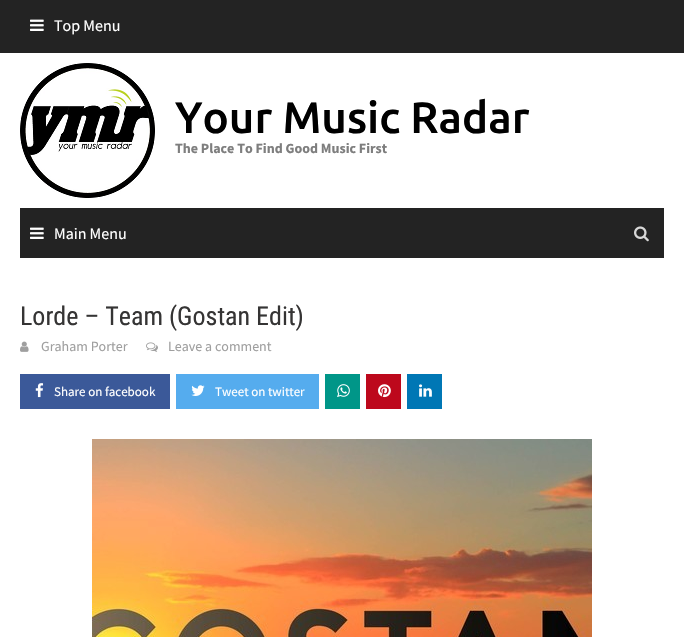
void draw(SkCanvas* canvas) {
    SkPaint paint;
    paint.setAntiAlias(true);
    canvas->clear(0xFFFFFFFF);
    paint.setColor(0xFF232323);
    canvas->drawRect(SkRect::MakeXYWH(0, 0, 684, 53), paint);
    canvas->drawImageRect(SkImages::DeferredFromEncodedData(SkData::MakeFromFileName("img1.png")), SkRect::MakeXYWH(30, 19, 14, 12), SkSamplingOptions());
    SkFont font1(fontMgr->matchFamilyStyle("Source Sans Pro", SkFontStyle::Normal()), 16);
    font1.setSubpixel(true);
    paint.setColor(0xFFFFFFFF);
    canvas->drawString("Top Menu", 54, 31, font1, paint);
    canvas->drawImageRect(SkImages::DeferredFromEncodedData(SkData::MakeFromFileName("img2.png")), SkRect::MakeXYWH(20, 63, 135, 135), SkSamplingOptions());
    SkFont font2(fontMgr->matchFamilyStyle("Ubuntu", SkFontStyle(500, SkFontStyle::kNormal_Width, SkFontStyle::kUpright_Slant)), 44);
    font2.setSubpixel(true);
    paint.setColor(0xFF000000);
    canvas->drawString("Your Music Radar", 175, 133, font2, paint);
    SkFont font3(fontMgr->matchFamilyStyle("Source Sans Pro", SkFontStyle::Bold()), 14);
    font3.setSubpixel(true);
    paint.setColor(0xFF7E7E7E);
    canvas->drawString("The Place To Find Good Music First", 175, 153, font3, paint);
    paint.setColor(0xFF232323);
    canvas->drawRect(SkRect::MakeXYWH(20, 208, 644, 50), paint);
    canvas->drawImageRect(SkImages::DeferredFromEncodedData(SkData::MakeFromFileName("img1.png")), SkRect::MakeXYWH(30, 227, 14, 12), SkSamplingOptions());
    paint.setColor(0xFFFFFFFF);
    canvas->drawString("Main Menu", 54, 239, font1, paint);
    canvas->drawImageRect(SkImages::DeferredFromEncodedData(SkData::MakeFromFileName("img3.png")), SkRect::MakeXYWH(634, 226, 15, 16), SkSamplingOptions());
    SkFont font4(fontMgr->matchFamilyStyle("Roboto Condensed", SkFontStyle::Normal()), 26);
    font4.setSubpixel(true);
    paint.setColor(0xFF353434);
    canvas->drawString("Lorde – Team (Gostan Edit)", 20, 325, font4, paint);
    canvas->drawImageRect(SkImages::DeferredFromEncodedData(SkData::MakeFromFileName("img4.png")), SkRect::MakeXYWH(20, 341, 9, 11), SkSamplingOptions());
    SkFont font5(fontMgr->matchFamilyStyle("Source Sans Pro", SkFontStyle::Normal()), 14);
    font5.setSubpixel(true);
    paint.setColor(0xFF9F9F9F);
    canvas->drawString("Graham Porter", 41, 351, font5, paint);
    canvas->drawImageRect(SkImages::DeferredFromEncodedData(SkData::MakeFromFileName("img5.png")), SkRect::MakeXYWH(146, 342, 12, 10), SkSamplingOptions());
    canvas->drawString("Leave a comment", 168, 351, font5, paint);
    paint.setColor(0xFF3B5999);
    canvas->drawRect(SkRect::MakeXYWH(20, 374, 150, 35), paint);
    canvas->drawImageRect(SkImages::DeferredFromEncodedData(SkData::MakeFromFileName("img6.png")), SkRect::MakeXYWH(35, 383, 9, 15), SkSamplingOptions());
    SkFont font6(fontMgr->matchFamilyStyle("Source Sans Pro", SkFontStyle::Normal()), 13);
    font6.setSubpixel(true);
    paint.setColor(0xFFFFFFFF);
    canvas->drawString("Share on facebook", 54, 396, font6, paint);
    paint.setColor(0xFF55ACEE);
    canvas->drawRect(SkRect::MakeXYWH(176, 374, 143, 35), paint);
    canvas->drawImageRect(SkImages::DeferredFromEncodedData(SkData::MakeFromFileName("img7.png")), SkRect::MakeXYWH(191, 385, 14, 11), SkSamplingOptions());
    paint.setColor(0xFFFFFFFF);
    canvas->drawString("Tweet on twitter", 215, 396, font6, paint);
    paint.setColor(0xFF009688);
    canvas->drawRect(SkRect::MakeXYWH(325, 374, 35, 35), paint);
    canvas->drawImageRect(SkImages::DeferredFromEncodedData(SkData::MakeFromFileName("img8.png")), SkRect::MakeXYWH(337, 384, 13, 13), SkSamplingOptions());
    paint.setColor(0xFFBD081C);
    canvas->drawRect(SkRect::MakeXYWH(366, 374, 35, 35), paint);
    canvas->drawImageRect(SkImages::DeferredFromEncodedData(SkData::MakeFromFileName("img9.png")), SkRect::MakeXYWH(378, 384, 13, 14), SkSamplingOptions());
    paint.setColor(0xFF0077B5);
    canvas->drawRect(SkRect::MakeXYWH(407, 374, 35, 35), paint);
    canvas->drawImageRect(SkImages::DeferredFromEncodedData(SkData::MakeFromFileName("img10.png")), SkRect::MakeXYWH(419, 384, 13, 13), SkSamplingOptions());
    canvas->drawImageRect(SkImages::DeferredFromEncodedData(SkData::MakeFromFileName("img11.png")), SkRect::MakeXYWH(92, 439, 500, 198), SkSamplingOptions());
}
